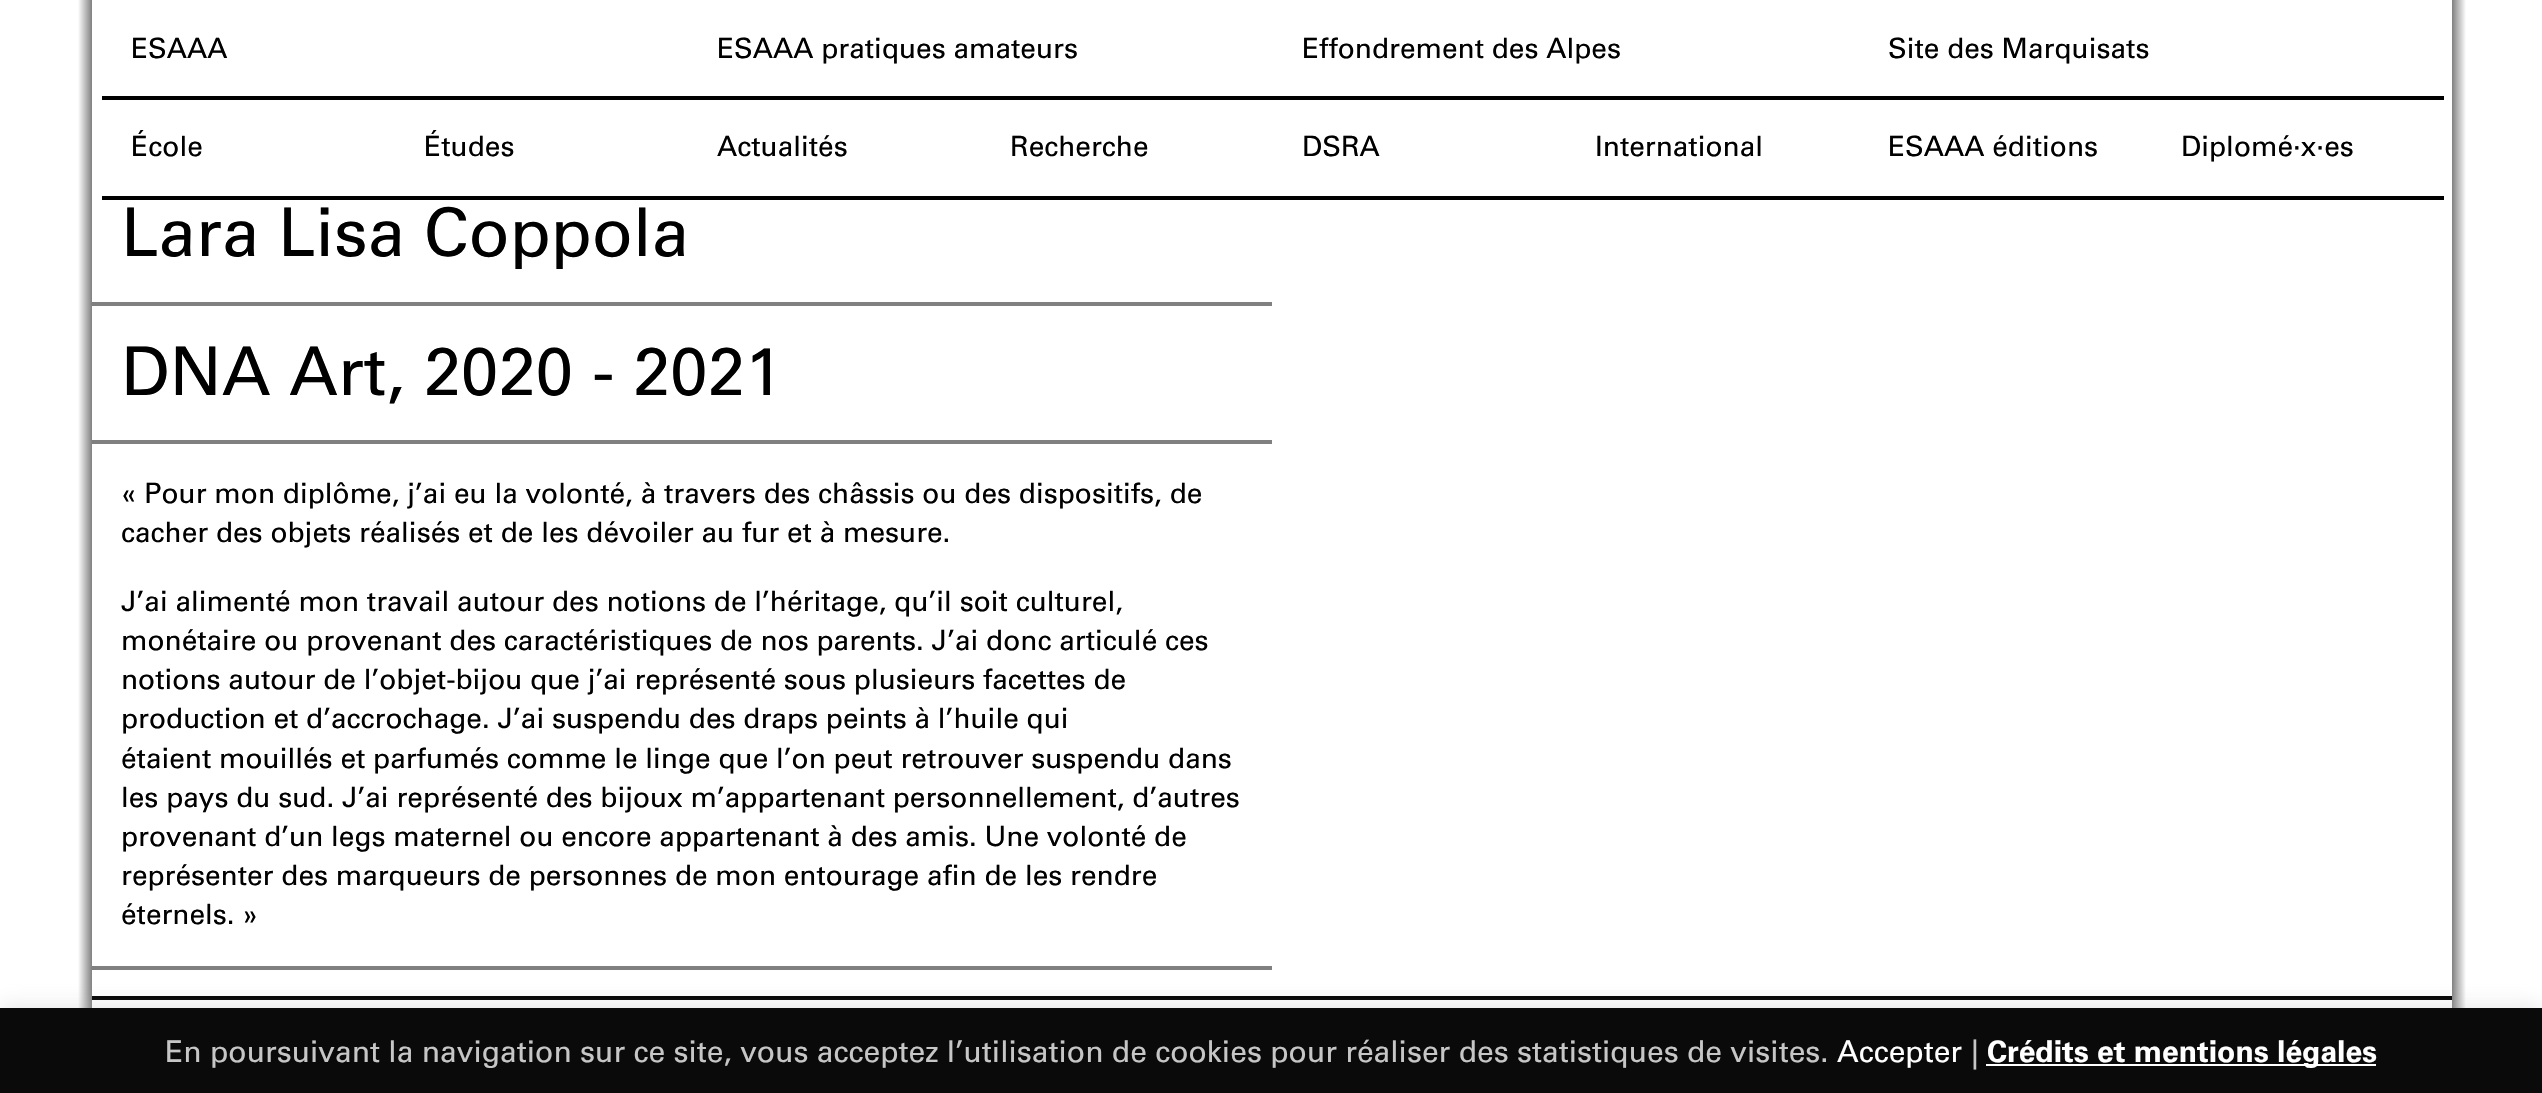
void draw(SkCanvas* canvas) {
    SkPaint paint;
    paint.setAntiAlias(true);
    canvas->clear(0xFFFFFFFF);
    {
        const SkColor colors[] = {0xFFFFFFFF, 0xFF808080};
        const float stops[] = {0, 1};
        const SkPoint ends[] = {{78, 821}, {92, 821}};
        paint.setShader(SkGradientShader::MakeLinear(ends, colors, stops, 2, SkTileMode::kClamp));
        paint.setAlpha(255);
    }
    canvas->drawRect(SkRect::MakeXYWH(78, 0, 14, 1008), paint);
    paint.setShader(nullptr);
    paint.setColor(0xFF000000);
    canvas->drawRect(SkRect::MakeXYWH(102, 96, 2342, 4), paint);
    SkFont font1(fontMgr->matchFamilyStyle("Univers", SkFontStyle::Normal()), 28);
    font1.setSubpixel(true);
    canvas->drawString("ESAAA", 131, 58, font1, paint);
    canvas->drawString("ESAAA pratiques amateurs", 717, 58, font1, paint);
    canvas->drawString("Effondrement des Alpes", 1302, 58, font1, paint);
    canvas->drawString("Site des Marquisats", 1888, 58, font1, paint);
    canvas->drawRect(SkRect::MakeXYWH(102, 196, 2342, 4), paint);
    canvas->drawString("École", 131, 156, font1, paint);
    canvas->drawString("Études", 424, 156, font1, paint);
    canvas->drawString("Actualités", 717, 156, font1, paint);
    canvas->drawString("Recherche", 1010, 156, font1, paint);
    canvas->drawString("DSRA", 1302, 156, font1, paint);
    canvas->drawString("International", 1595, 156, font1, paint);
    canvas->drawString("ESAAA éditions", 1888, 156, font1, paint);
    canvas->drawString("Diplomé·x·es", 2181, 156, font1, paint);
    SkFont font2(fontMgr->matchFamilyStyle("Univers", SkFontStyle::Normal()), 67.25f);
    font2.setSubpixel(true);
    canvas->drawString("Lara Lisa Coppola", 121, 256, font2, paint);
    paint.setColor(0xFF808080);
    canvas->drawRect(SkRect::MakeXYWH(92, 302, 1180, 4), paint);
    paint.setColor(0xFF000000);
    canvas->drawString("DNA Art, 2020 - 2021", 121, 395, font2, paint);
    paint.setColor(0xFF808080);
    canvas->drawRect(SkRect::MakeXYWH(92, 440, 1180, 4), paint);
    paint.setColor(0xFF000000);
    canvas->drawString("« Pour mon diplôme, j’ai eu la volonté, à travers des châssis ou des dispositifs, de", 121, 503, font1, paint);
    canvas->drawString("cacher des objets réalisés et de les dévoiler au fur et à mesure.", 121, 542, font1, paint);
    canvas->drawString("J’ai alimenté mon travail autour des notions de l’héritage, qu’il soit culturel,", 121, 611, font1, paint);
    canvas->drawString("monétaire ou provenant des caractéristiques de nos parents. J’ai donc articulé ces", 121, 650, font1, paint);
    canvas->drawString("notions autour de l’objet-bijou que j’ai représenté sous plusieurs facettes de", 121, 689, font1, paint);
    canvas->drawString("production et d’accrochage. J’ai suspendu des draps peints à l’huile qui", 121, 728, font1, paint);
    canvas->drawString("étaient mouillés et parfumés comme le linge que l’on peut retrouver suspendu dans", 121, 768, font1, paint);
    canvas->drawString("les pays du sud. J’ai représenté des bijoux m’appartenant personnellement, d’autres", 121, 807, font1, paint);
    canvas->drawString("provenant d’un legs maternel ou encore appartenant à des amis. Une volonté de", 121, 846, font1, paint);
    canvas->drawString("représenter des marqueurs de personnes de mon entourage afin de les rendre", 121, 885, font1, paint);
    canvas->drawString("éternels. »", 121, 924, font1, paint);
    paint.setColor(0xFF808080);
    canvas->drawRect(SkRect::MakeXYWH(92, 966, 1180, 4), paint);
    paint.setColor(0xFF000000);
    canvas->drawRect(SkRect::MakeXYWH(92, 996, 2360, 4), paint);
    {
        const SkColor colors[] = {0xFFFFFFFF, 0xFF808080};
        const float stops[] = {0, 1};
        const SkPoint ends[] = {{2466, 821}, {2452, 821}};
        paint.setShader(SkGradientShader::MakeLinear(ends, colors, stops, 2, SkTileMode::kClamp));
        paint.setAlpha(255);
    }
    canvas->drawRect(SkRect::MakeXYWH(2452, 0, 14, 1008), paint);
    paint.setShader(nullptr);
    paint.setColor(0x4DACABAB);
    paint.setMaskFilter(SkMaskFilter::MakeBlur(kNormal_SkBlurStyle, 10));
    canvas->drawRect(SkRect::MakeXYWH(0, 1006, 2542, 86), paint);
    paint.setMaskFilter(nullptr);
    paint.setColor(0xFF0A0A0A);
    canvas->drawRect(SkRect::MakeXYWH(0, 1008, 2542, 85), paint);
    SkFont font3(fontMgr->matchFamilyStyle("Univers", SkFontStyle::Normal()), 30);
    font3.setSubpixel(true);
    paint.setColor(0xFFC6C6C6);
    canvas->drawString("En poursuivant la navigation sur ce site, vous acceptez l’utilisation de cookies pour réaliser des statistiques de visites.", 165, 1062, font3, paint);
    paint.setColor(0xFFFFFFFF);
    canvas->drawString("Accepter", 1837, 1062, font3, paint);
    paint.setColor(0xFFC6C6C6);
    canvas->drawString("|", 1971, 1062, font3, paint);
    paint.setColor(0xFFFFFFFF);
    canvas->drawRect(SkRect::MakeXYWH(1986, 1064, 390, 2), paint);
    SkFont font4(fontMgr->matchFamilyStyle("Univers", SkFontStyle::Bold()), 30);
    font4.setSubpixel(true);
    canvas->drawString("Crédits et mentions légales", 1987, 1062, font4, paint);
}
